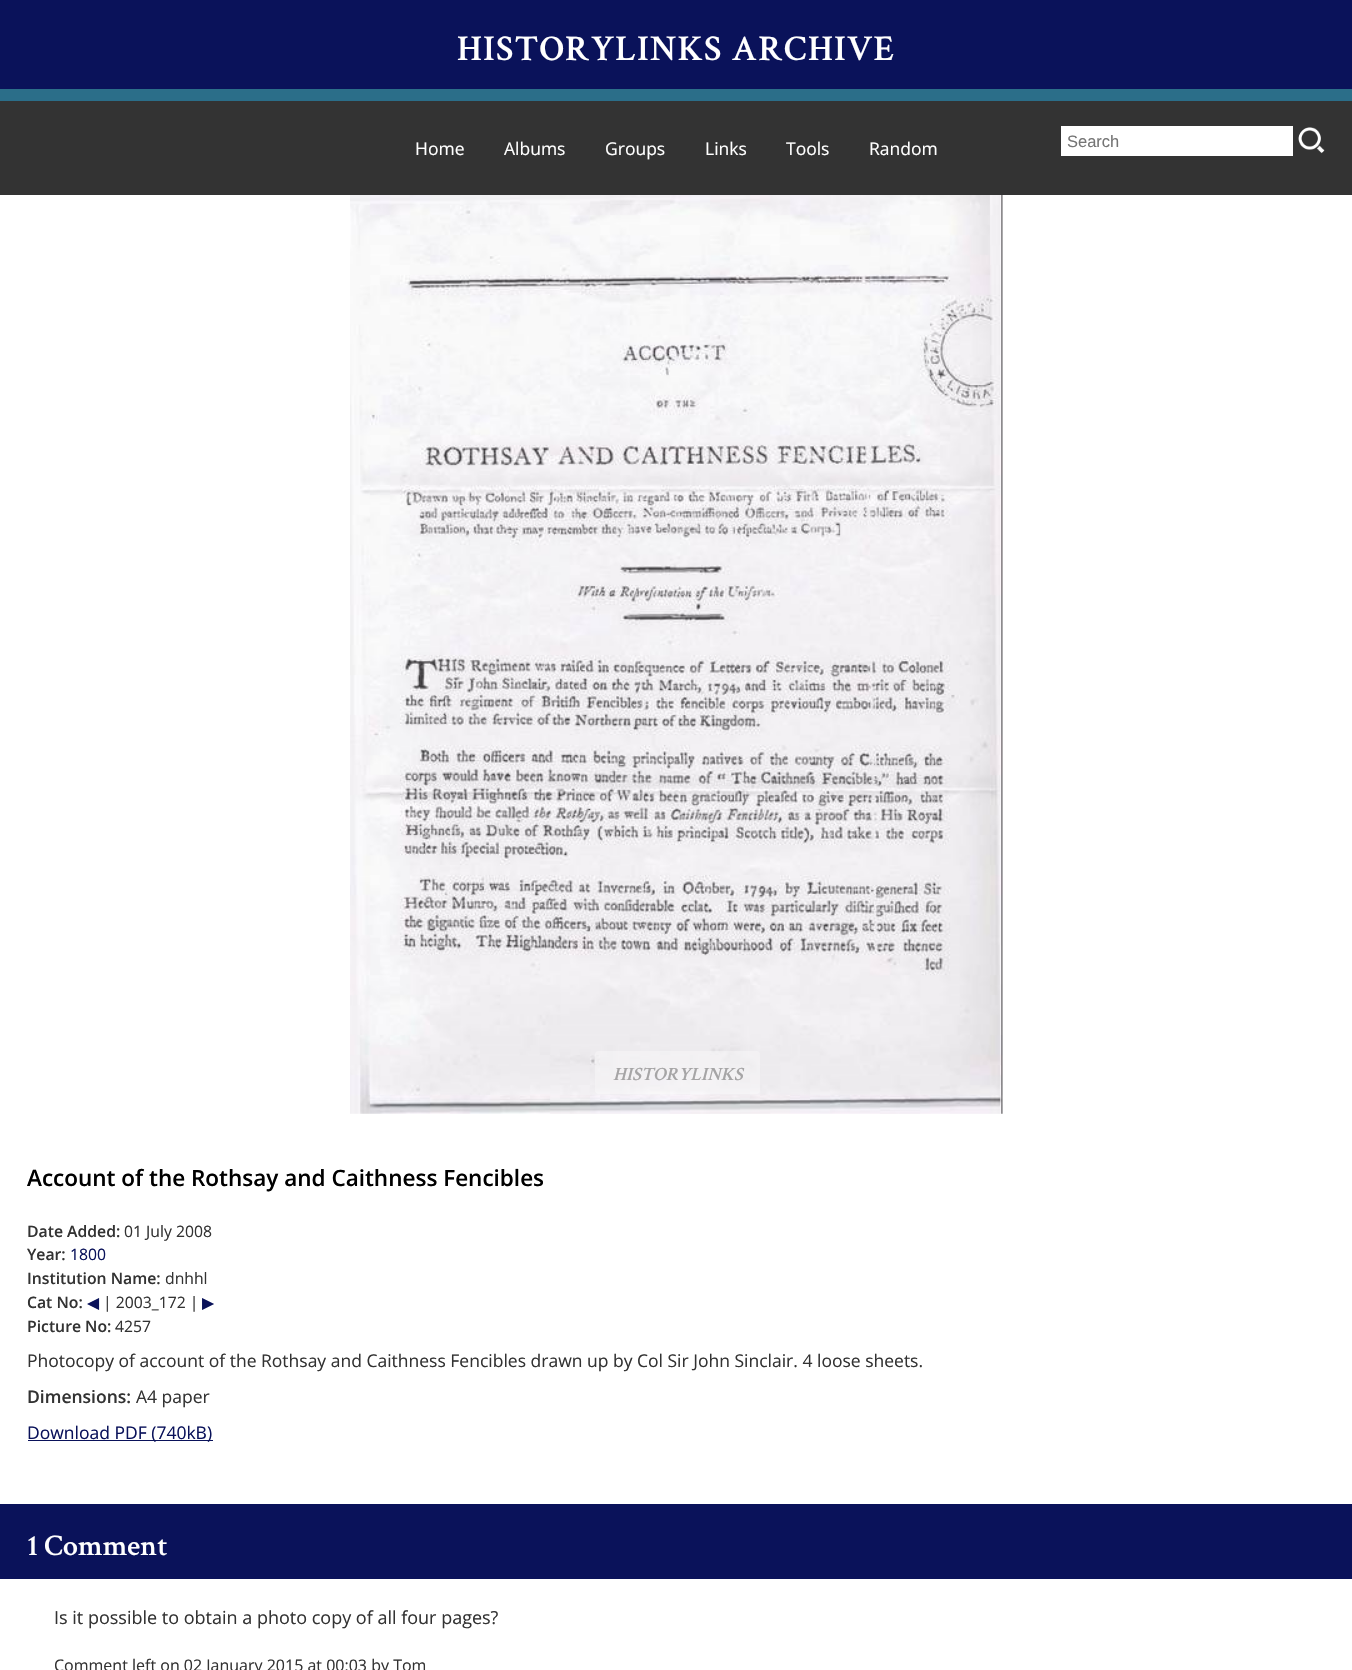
void draw(SkCanvas* canvas) {
    SkPaint paint;
    paint.setAntiAlias(true);
    auto spacedText = [&](const char* s, float x, float y, const SkFont& font, const SkPaint& ink, float letter, float word) {
        std::vector<SkGlyphID> glyphs(font.countText(s, strlen(s), SkTextEncoding::kUTF8));
        std::vector<float> xs(glyphs.size());
        font.textToGlyphs(s, strlen(s), SkTextEncoding::kUTF8, glyphs);
        font.getXPos(glyphs, xs, x);
        float extra = 0;
        for (size_t i = 0; i < glyphs.size(); i++) {
            xs[i] += extra;
            extra += letter + word * (glyphs[i] == font.unicharToGlyph(' '));
        }
        canvas->drawTextBlob(SkTextBlob::MakeFromPosHGlyphs(glyphs, xs, y, font), 0, 0, ink);
    };
    canvas->clear(0xFFFFFFFF);
    paint.setColor(0xFF0A125A);
    canvas->drawRect(SkRect::MakeXYWH(0, 0, 1352, 89), paint);
    paint.setColor(0xFF2B6E89);
    canvas->drawRect(SkRect::MakeXYWH(0, 89, 1352, 12), paint);
    SkFont font1(fontMgr->matchFamilyStyle("Crimson Text", SkFontStyle(600, SkFontStyle::kNormal_Width, SkFontStyle::kUpright_Slant)), 36.25f);
    font1.setSubpixel(true);
    paint.setColor(0xFFFFFFFF);
    spacedText("HISTORYLINKS ARCHIVE", 457, 60, font1, paint, 1.25f, 0);
    paint.setColor(0xFF333333);
    canvas->drawRect(SkRect::MakeXYWH(0, 101, 1352, 94), paint);
    SkFont font2(fontMgr->matchFamilyStyle("Open Sans", SkFontStyle::Normal()), 17.5f);
    font2.setSubpixel(true);
    paint.setColor(0xFFFFFFFF);
    canvas->drawString("Home", 415, 155, font2, paint);
    canvas->drawString("Albums", 504, 155, font2, paint);
    canvas->drawString("Groups", 605, 155, font2, paint);
    canvas->drawString("Links", 705, 155, font2, paint);
    canvas->drawString("Tools", 786, 155, font2, paint);
    canvas->drawString("Random", 869, 155, font2, paint);
    canvas->drawRect(SkRect::MakeXYWH(1061, 126, 232, 30), paint);
    SkFont font3(fontMgr->matchFamilyStyle("Liberation Sans", SkFontStyle::Normal()), 16.5f);
    font3.setSubpixel(true);
    paint.setColor(0xFF757575);
    canvas->drawString("Search", 1067, 147, font3, paint);
    canvas->drawImageRect(SkImages::DeferredFromEncodedData(SkData::MakeFromFileName("img1.png")), SkRect::MakeXYWH(1298, 127, 27, 27), SkSamplingOptions());
    canvas->drawImageRect(SkImages::DeferredFromEncodedData(SkData::MakeFromFileName("img2.png")), SkRect::MakeXYWH(350, 195, 653, 919), SkSamplingOptions());
    paint.setColor(0x52FFFFFF);
    canvas->drawRoundRect(SkRect::MakeXYWH(595, 1051, 165, 43), 4, 4, paint);
    SkFont font4(fontMgr->matchFamilyStyle("Crimson Text", SkFontStyle(600, SkFontStyle::kNormal_Width, SkFontStyle::kItalic_Slant)), 18.75f);
    font4.setSubpixel(true);
    paint.setColor(0xFFA6A5A6);
    canvas->drawString("HISTORYLINKS", 613, 1080, font4, paint);
    SkFont font5(fontMgr->matchFamilyStyle("Open Sans", SkFontStyle(600, SkFontStyle::kNormal_Width, SkFontStyle::kUpright_Slant)), 22.5f);
    font5.setSubpixel(true);
    paint.setColor(0xFF000000);
    canvas->drawString("Account of the Rothsay and Caithness Fencibles", 27, 1186, font5, paint);
    SkFont font6(fontMgr->matchFamilyStyle("Open Sans", SkFontStyle(600, SkFontStyle::kNormal_Width, SkFontStyle::kUpright_Slant)), 15.75f);
    font6.setSubpixel(true);
    paint.setColor(0xFF333333);
    canvas->drawString("Date Added:", 27, 1237, font6, paint);
    SkFont font7(fontMgr->matchFamilyStyle("Open Sans", SkFontStyle::Normal()), 15.75f);
    font7.setSubpixel(true);
    canvas->drawString("01 July 2008", 124, 1237, font7, paint);
    canvas->drawString("Year:", 27, 1260, font6, paint);
    paint.setColor(0xFF0A125A);
    canvas->drawString("1800", 70, 1260, font7, paint);
    paint.setColor(0xFF333333);
    canvas->drawString("Institution Name:", 27, 1284, font6, paint);
    canvas->drawString("dnhhl", 165, 1284, font7, paint);
    canvas->drawString("Cat No:", 27, 1308, font6, paint);
    SkFont font8(fontMgr->matchFamilyStyle("DejaVu Sans", SkFontStyle::Normal()), 15.75f);
    font8.setSubpixel(true);
    paint.setColor(0xFF0A125A);
    canvas->drawString("◀", 87, 1308, font8, paint);
    paint.setColor(0xFF333333);
    canvas->drawString("| 2003_172 |", 103, 1308, font7, paint);
    paint.setColor(0xFF0A125A);
    canvas->drawString("▶", 202, 1308, font8, paint);
    paint.setColor(0xFF333333);
    canvas->drawString("Picture No:", 27, 1332, font6, paint);
    canvas->drawString("4257", 115, 1332, font7, paint);
    canvas->drawString("Photocopy of account of the Rothsay and Caithness Fencibles drawn up by Col Sir John Sinclair. 4 loose sheets.", 27, 1367, font2, paint);
    SkFont font9(fontMgr->matchFamilyStyle("Open Sans", SkFontStyle(600, SkFontStyle::kNormal_Width, SkFontStyle::kUpright_Slant)), 17.5f);
    font9.setSubpixel(true);
    canvas->drawString("Dimensions:", 27, 1403, font9, paint);
    canvas->drawString("A4 paper", 136, 1403, font2, paint);
    paint.setColor(0xFF0A125A);
    canvas->drawRect(SkRect::MakeXYWH(28, 1440, 185, 1), paint);
    canvas->drawString("Download PDF (740kB)", 27, 1439, font2, paint);
    canvas->drawRect(SkRect::MakeXYWH(0, 1504, 1352, 75), paint);
    SkFont font10(fontMgr->matchFamilyStyle("Crimson Text", SkFontStyle(600, SkFontStyle::kNormal_Width, SkFontStyle::kUpright_Slant)), 30);
    font10.setSubpixel(true);
    paint.setColor(0xFFFFFFFF);
    canvas->drawString("1 Comment", 27, 1555, font10, paint);
    SkFont font11(fontMgr->matchFamilyStyle("Open Sans", SkFontStyle::Normal()), 18);
    font11.setSubpixel(true);
    paint.setColor(0xFF333333);
    canvas->drawString("Is it possible to obtain a photo copy of all four pages?", 54, 1624, font11, paint);
    SkFont font12(fontMgr->matchFamilyStyle("Open Sans", SkFontStyle::Normal()), 16);
    font12.setSubpixel(true);
    canvas->drawString("Comment left on 02 January 2015 at 00:03 by Tom", 54, 1671, font12, paint);
}
